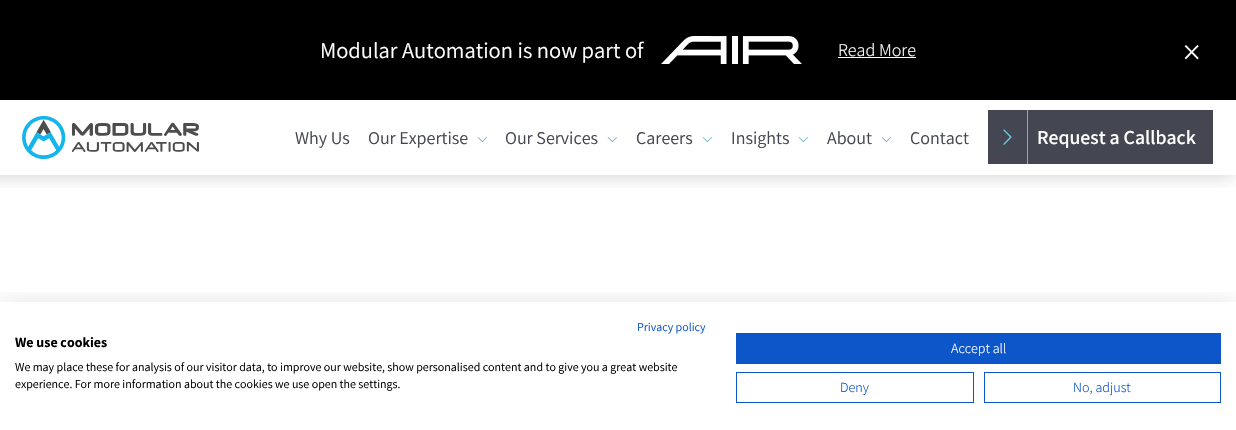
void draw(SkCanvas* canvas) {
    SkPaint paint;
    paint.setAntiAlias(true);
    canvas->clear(0xFFFFFFFF);
    canvas->save();
    canvas->clipRect(SkRect::MakeXYWH(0, 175, 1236, 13));
    paint.setColor(0x33070707);
    paint.setMaskFilter(SkMaskFilter::MakeBlur(kNormal_SkBlurStyle, 10));
    canvas->drawRect(SkRect::MakeXYWH(-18, 84, 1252, 91), paint);
    paint.setMaskFilter(nullptr);
    canvas->restore();
    paint.setColor(0xFF000000);
    canvas->drawRect(SkRect::MakeXYWH(0, 0, 1236, 100), paint);
    SkFont font1(fontMgr->matchFamilyStyle("Assistant", SkFontStyle::Normal()), 22.5f);
    font1.setSubpixel(true);
    paint.setColor(0xFFFFFFFF);
    canvas->drawString("Modular Automation is now part of", 320, 58, font1, paint);
    canvas->drawImageRect(SkImages::DeferredFromEncodedData(SkData::MakeFromFileName("img1.png")), SkRect::MakeXYWH(661, 36, 141, 28), SkSamplingOptions());
    SkFont font2(fontMgr->matchFamilyStyle("Assistant", SkFontStyle(300, SkFontStyle::kNormal_Width, SkFontStyle::kUpright_Slant)), 18);
    font2.setSubpixel(true);
    canvas->drawString("Read More", 838, 56, font2, paint);
    canvas->drawRect(SkRect::MakeXYWH(838, 57, 78, 1), paint);
    SkFont font3(fontMgr->matchFamilyStyle("Assistant", SkFontStyle(300, SkFontStyle::kNormal_Width, SkFontStyle::kUpright_Slant)), 36);
    font3.setSubpixel(true);
    canvas->drawString("×", 1183, 64, font3, paint);
    canvas->drawImageRect(SkImages::DeferredFromEncodedData(SkData::MakeFromFileName("img2.png")), SkRect::MakeXYWH(22, 116, 177, 43), SkSamplingOptions());
    SkFont font4(fontMgr->matchFamilyStyle("Assistant", SkFontStyle::Normal()), 18);
    font4.setSubpixel(true);
    paint.setColor(0xFF444651);
    canvas->drawString("Why Us", 295, 144, font4, paint);
    canvas->drawString("Our Expertise", 368, 144, font4, paint);
    canvas->drawImageRect(SkImages::DeferredFromEncodedData(SkData::MakeFromFileName("img3.png")), SkRect::MakeXYWH(477, 137, 10, 5), SkSamplingOptions());
    canvas->drawString("Our Services", 505, 144, font4, paint);
    canvas->drawImageRect(SkImages::DeferredFromEncodedData(SkData::MakeFromFileName("img3.png")), SkRect::MakeXYWH(607, 137, 10, 5), SkSamplingOptions());
    canvas->drawString("Careers", 636, 144, font4, paint);
    canvas->drawImageRect(SkImages::DeferredFromEncodedData(SkData::MakeFromFileName("img3.png")), SkRect::MakeXYWH(702, 137, 10, 5), SkSamplingOptions());
    canvas->drawString("Insights", 731, 144, font4, paint);
    canvas->drawImageRect(SkImages::DeferredFromEncodedData(SkData::MakeFromFileName("img3.png")), SkRect::MakeXYWH(798, 137, 10, 5), SkSamplingOptions());
    canvas->drawString("About", 827, 144, font4, paint);
    canvas->drawImageRect(SkImages::DeferredFromEncodedData(SkData::MakeFromFileName("img3.png")), SkRect::MakeXYWH(881, 137, 10, 5), SkSamplingOptions());
    canvas->drawString("Contact", 910, 144, font4, paint);
    canvas->drawRect(SkRect::MakeXYWH(988, 110, 225, 54), paint);
    paint.setColor(0x80FFFFFF);
    canvas->drawRect(SkRect::MakeXYWH(1027, 109, 1, 56), paint);
    canvas->drawImageRect(SkImages::DeferredFromEncodedData(SkData::MakeFromFileName("img4.png")), SkRect::MakeXYWH(1003, 129, 9, 16), SkSamplingOptions());
    SkFont font5(fontMgr->matchFamilyStyle("Assistant", SkFontStyle(600, SkFontStyle::kNormal_Width, SkFontStyle::kUpright_Slant)), 19.75f);
    font5.setSubpixel(true);
    paint.setColor(0xFFFFFFFF);
    canvas->drawString("Request a Callback", 1037, 144, font5, paint);
    canvas->save();
    canvas->clipRect(SkRect::MakeXYWH(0, 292, 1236, 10));
    paint.setColor(0x1A000000);
    paint.setMaskFilter(SkMaskFilter::MakeBlur(kNormal_SkBlurStyle, 12));
    canvas->drawRect(SkRect::MakeXYWH(0, 302, 1236, 128), paint);
    paint.setMaskFilter(nullptr);
    canvas->restore();
    SkFont font6(fontMgr->matchFamilyStyle("Assistant", SkFontStyle::Normal()), 12);
    font6.setSubpixel(true);
    paint.setColor(0xFF0D56C9);
    canvas->drawString("Privacy policy", 637, 331, font6, paint);
    SkFont font7(fontMgr->matchFamilyStyle("Assistant", SkFontStyle::Bold()), 14);
    font7.setSubpixel(true);
    paint.setColor(0xFF000000);
    canvas->drawString("We use cookies", 15, 347, font7, paint);
    canvas->drawString("We may place these for analysis of our visitor data, to improve our website, show personalised content and to give you a great website", 15, 371, font6, paint);
    canvas->drawString("experience. For more information about the cookies we use open the settings.", 15, 388, font6, paint);
    paint.setColor(0xFF0D56C9);
    canvas->drawRect(SkRect::MakeXYWH(736, 333, 485, 31), paint);
    SkFont font8(fontMgr->matchFamilyStyle("Assistant", SkFontStyle(300, SkFontStyle::kNormal_Width, SkFontStyle::kUpright_Slant)), 14);
    font8.setSubpixel(true);
    paint.setColor(0xFFFFFFFF);
    canvas->drawString("Accept all", 951, 353, font8, paint);
    paint.setStyle(SkPaint::kStroke_Style);
    paint.setStrokeWidth(1);
    paint.setColor(0xFF0D56C9);
    canvas->drawRect(SkRect::MakeXYWH(736.5f, 372.5f, 237, 30), paint);
    paint.setStyle(SkPaint::kFill_Style);
    canvas->drawString("Deny", 840, 392, font8, paint);
    paint.setStyle(SkPaint::kStroke_Style);
    canvas->drawRect(SkRect::MakeXYWH(984.5f, 372.5f, 236, 30), paint);
    paint.setStyle(SkPaint::kFill_Style);
    canvas->drawString("No, adjust", 1073, 392, font8, paint);
}
